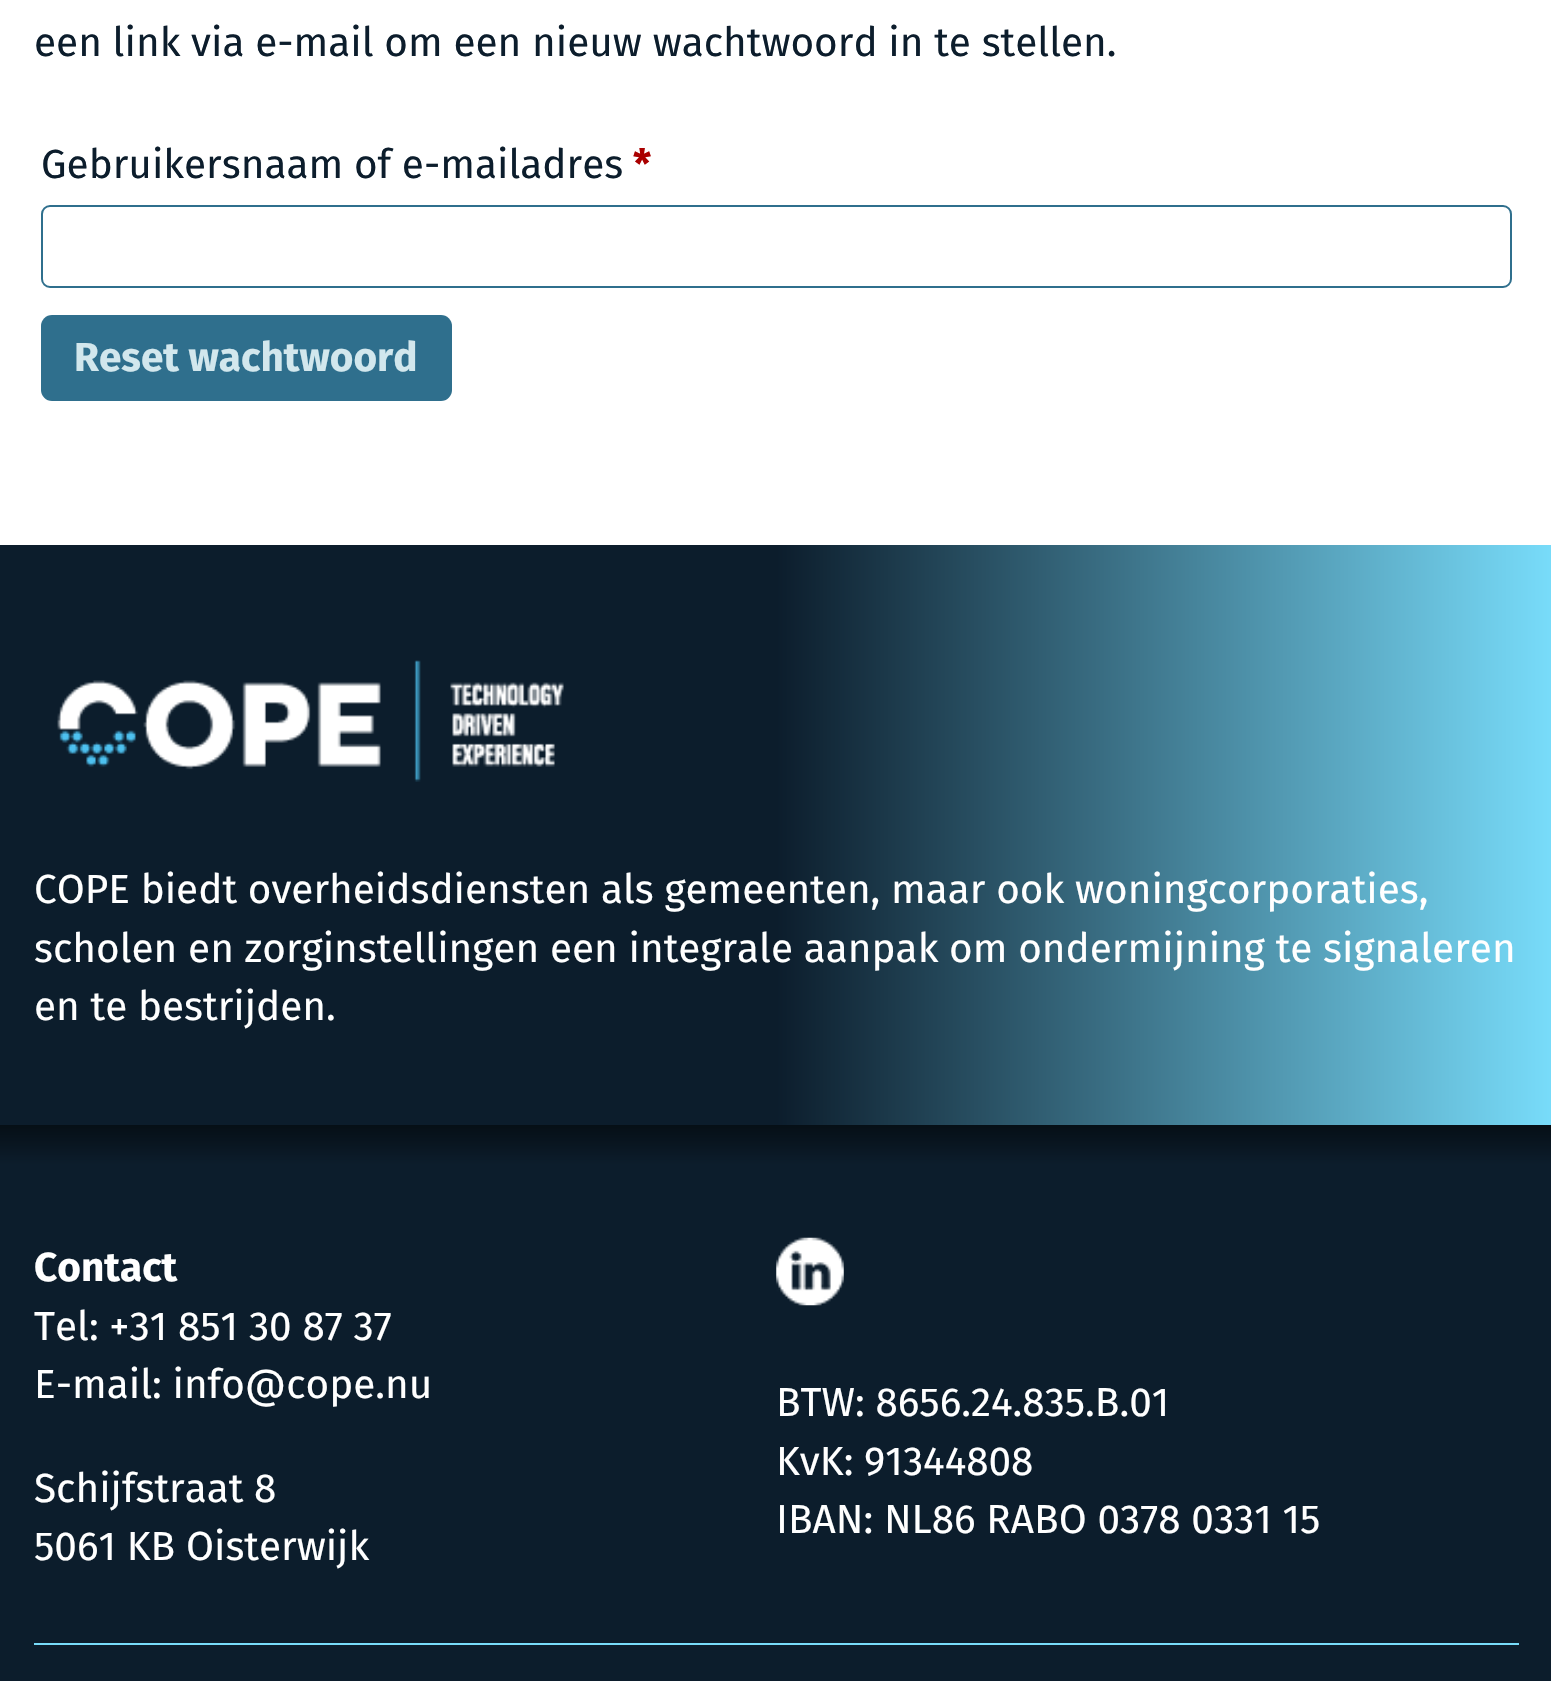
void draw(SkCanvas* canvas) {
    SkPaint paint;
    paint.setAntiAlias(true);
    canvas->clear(0xFFFFFFFF);
    SkFont font1(fontMgr->matchFamilyStyle("Fira Sans", SkFontStyle::Normal()), 40.5f);
    font1.setSubpixel(true);
    paint.setColor(0xFF0C1D2C);
    canvas->drawString("een link via e-mail om een nieuw wachtwoord in te stellen.", 34, 56, font1, paint);
    canvas->drawString("Gebruikersnaam of e-mailadres", 41, 178, font1, paint);
    SkFont font2(fontMgr->matchFamilyStyle("Fira Sans", SkFontStyle::Bold()), 40.5f);
    font2.setSubpixel(true);
    paint.setColor(0xFFAA0000);
    canvas->drawString("*", 633, 178, font2, paint);
    paint.setStyle(SkPaint::kStroke_Style);
    paint.setStrokeWidth(2);
    paint.setColor(0xFF2F6F8D);
    canvas->drawRoundRect(SkRect::MakeXYWH(42, 206, 1469, 81), 8, 8, paint);
    paint.setStyle(SkPaint::kFill_Style);
    canvas->drawRoundRect(SkRect::MakeXYWH(41, 315, 411, 86), 11, 11, paint);
    paint.setColor(0xFFD2E7ED);
    canvas->drawString("Reset wachtwoord", 74, 371, font2, paint);
    {
        const SkColor colors[] = {0xFF0C1D2C, 0xFF0C1D2C, 0xFF78DCFA};
        const float stops[] = {0, 0.5f, 1};
        const SkPoint ends[] = {{0, 835}, {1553, 835}};
        paint.setShader(SkGradientShader::MakeLinear(ends, colors, stops, 3, SkTileMode::kClamp));
        paint.setAlpha(255);
    }
    canvas->drawRect(SkRect::MakeXYWH(0, 545, 1551, 580), paint);
    canvas->drawImageRect(SkImages::DeferredFromEncodedData(SkData::MakeFromFileName("img1.png")), SkRect::MakeXYWH(57, 660, 507, 122), SkSamplingOptions());
    paint.setShader(nullptr);
    paint.setColor(0xFFFFFFFF);
    canvas->drawString("COPE biedt overheidsdiensten als gemeenten, maar ook woningcorporaties,", 34, 903, font1, paint);
    canvas->drawString("scholen en zorginstellingen een integrale aanpak om ondermijning te signaleren", 34, 962, font1, paint);
    canvas->drawString("en te bestrijden.", 34, 1020, font1, paint);
    paint.setColor(0xFF0C1D2C);
    canvas->drawRect(SkRect::MakeXYWH(0, 1204, 1551, 477), paint);
    {
        const SkColor colors[] = {0xFF060F16, 0xFF0C1D2C, 0xFF0C1D2C};
        const float stops[] = {0, 0.5f, 1};
        const SkPoint ends[] = {{776, 1125}, {776, 1204}};
        paint.setShader(SkGradientShader::MakeLinear(ends, colors, stops, 3, SkTileMode::kClamp));
        paint.setAlpha(255);
    }
    canvas->drawRect(SkRect::MakeXYWH(0, 1125, 1551, 79), paint);
    paint.setShader(nullptr);
    paint.setColor(0xFFFFFFFF);
    canvas->drawString("Contact", 34, 1281, font2, paint);
    canvas->drawString("Tel: +31 851 30 87 37", 34, 1340, font1, paint);
    canvas->drawString("E-mail: info@cope.nu", 34, 1398, font1, paint);
    canvas->drawString("Schijfstraat 8", 34, 1502, font1, paint);
    canvas->drawString("5061 KB Oisterwijk", 34, 1560, font1, paint);
    canvas->drawImageRect(SkImages::DeferredFromEncodedData(SkData::MakeFromFileName("img2.png")), SkRect::MakeXYWH(776, 1237, 68, 69), SkSamplingOptions());
    canvas->drawString("BTW: 8656.24.835.B.01", 776, 1416, font1, paint);
    canvas->drawString("KvK: 91344808", 776, 1475, font1, paint);
    canvas->drawString("IBAN: NL86 RABO 0378 0331 15", 776, 1533, font1, paint);
    paint.setColor(0xFF78DCFA);
    canvas->drawRect(SkRect::MakeXYWH(34, 1643, 1485, 2), paint);
}
